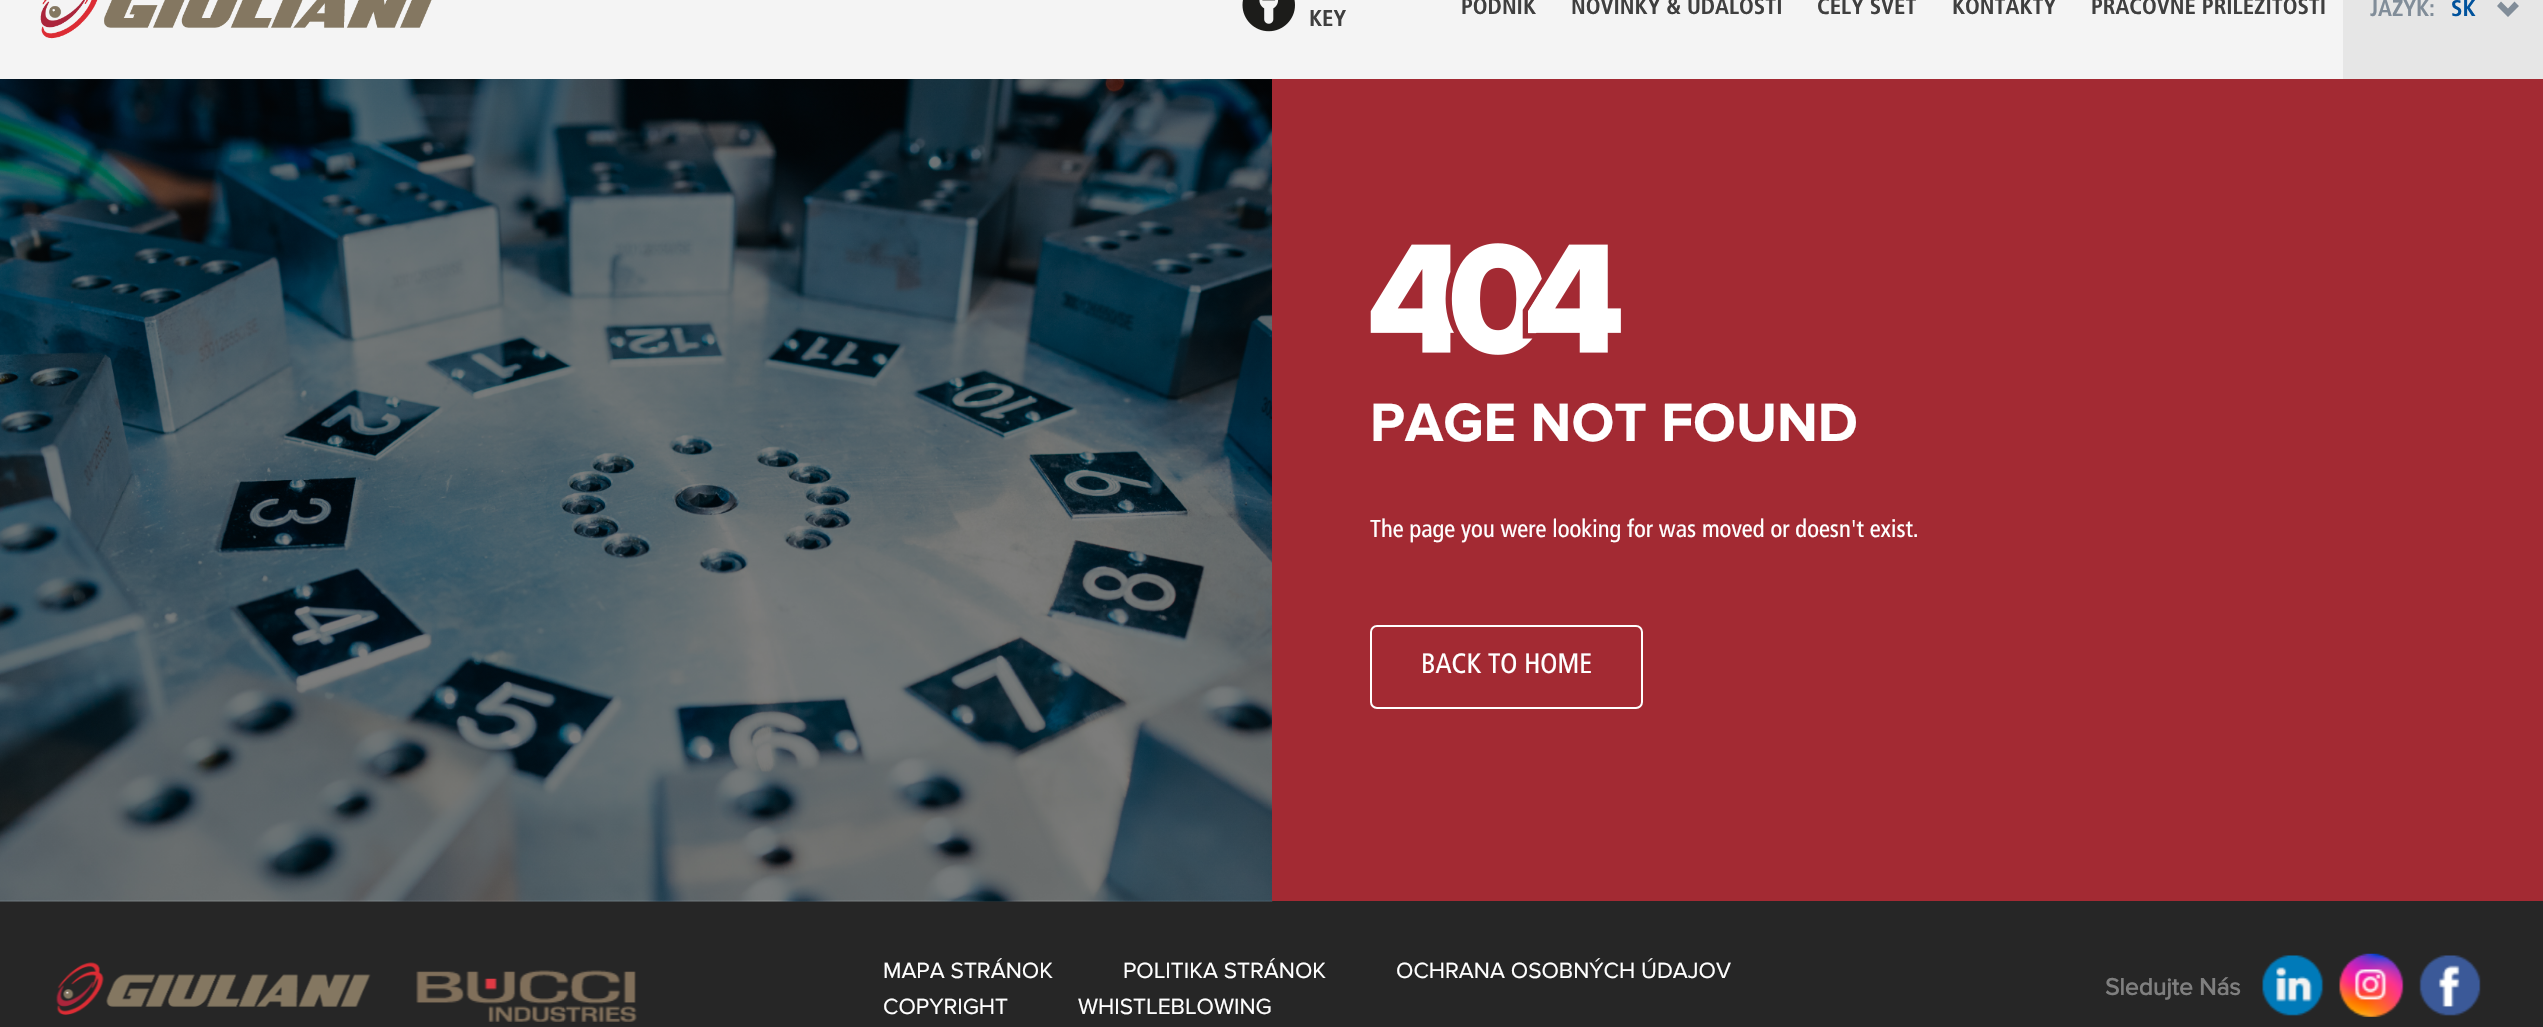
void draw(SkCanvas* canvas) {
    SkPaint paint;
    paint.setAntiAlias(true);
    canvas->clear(0xFF262626);
    paint.setColor(0xFFF4F4F4);
    canvas->drawRect(SkRect::MakeXYWH(0, 0, 2343, 79), paint);
    canvas->drawImageRect(SkImages::DeferredFromEncodedData(SkData::MakeFromFileName("img1.png")), SkRect::MakeXYWH(40, 0, 392, 39), SkSamplingOptions());
    canvas->drawImageRect(SkImages::DeferredFromEncodedData(SkData::MakeFromFileName("img2.png")), SkRect::MakeXYWH(1242, 0, 53, 32), SkSamplingOptions());
    SkFont font1(fontMgr->matchFamilyStyle("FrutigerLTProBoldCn", SkFontStyle::Normal()), 22.75f);
    font1.setSubpixel(true);
    paint.setColor(0xFF3F3F3F);
    canvas->drawString("KEY", 1309, 26, font1, paint);
    canvas->drawString("PODNIK", 1461, 14, font1, paint);
    canvas->drawString("NOVINKY & UDALOSTI", 1571, 14, font1, paint);
    canvas->drawString("CELÝ SVET", 1817, 14, font1, paint);
    canvas->drawString("KONTAKTY", 1952, 14, font1, paint);
    canvas->drawString("PRACOVNÉ PRÍLEŽITOSTI", 2091, 14, font1, paint);
    paint.setColor(0xFFE6E6E6);
    canvas->drawRect(SkRect::MakeXYWH(2343, 0, 200, 79), paint);
    paint.setColor(0xFF818D99);
    canvas->drawString("JAZYK:", 2370, 16, font1, paint);
    paint.setColor(0xFF00529C);
    canvas->drawString("SK", 2451, 16, font1, paint);
    paint.setColor(0xFF818D99);
    canvas->drawPath(SkPathBuilder().moveTo(2497, 6).lineTo(2508, 17).lineTo(2519, 6).lineTo(2514.5f, 1.5f).lineTo(2508, 8.5f).lineTo(2501, 1.5f).close().detach(), paint);
    canvas->drawImageRect(SkImages::DeferredFromEncodedData(SkData::MakeFromFileName("img3.png")), SkRect::MakeXYWH(0, 79, 1273, 823), SkSamplingOptions());
    paint.setColor(0xFFA32A33);
    canvas->drawRect(SkRect::MakeXYWH(1272, 79, 1271, 822), paint);
    canvas->drawImageRect(SkImages::DeferredFromEncodedData(SkData::MakeFromFileName("img4.png")), SkRect::MakeXYWH(1370, 243, 251, 112), SkSamplingOptions());
    SkFont font2(fontMgr->matchFamilyStyle("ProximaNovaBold", SkFontStyle::Normal()), 56);
    font2.setSubpixel(true);
    paint.setColor(0xFFFFFFFF);
    canvas->drawString("PAGE NOT FOUND", 1370, 441, font2, paint);
    SkFont font3(fontMgr->matchFamilyStyle("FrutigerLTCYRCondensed", SkFontStyle::Normal()), 24.5f);
    font3.setSubpixel(true);
    canvas->drawString("The page you were looking for was moved or doesn't exist.", 1370, 537, font3, paint);
    paint.setStyle(SkPaint::kStroke_Style);
    paint.setStrokeWidth(2);
    canvas->drawRoundRect(SkRect::MakeXYWH(1371, 626, 271, 82), 6, 6, paint);
    SkFont font4(fontMgr->matchFamilyStyle("FrutigerLTCYRCondensed", SkFontStyle::Normal()), 28);
    font4.setSubpixel(true);
    paint.setStyle(SkPaint::kFill_Style);
    canvas->drawString("BACK TO HOME", 1421, 673, font4, paint);
    canvas->drawImageRect(SkImages::DeferredFromEncodedData(SkData::MakeFromFileName("img5.png")), SkRect::MakeXYWH(56, 962, 315, 53), SkSamplingOptions());
    canvas->drawImageRect(SkImages::DeferredFromEncodedData(SkData::MakeFromFileName("img6.png")), SkRect::MakeXYWH(416, 970, 221, 52), SkSamplingOptions());
    SkFont font5(fontMgr->matchFamilyStyle("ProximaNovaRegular", SkFontStyle::Normal()), 22.75f);
    font5.setSubpixel(true);
    canvas->drawString("MAPA STRÁNOK", 883, 978, font5, paint);
    canvas->drawString("POLITIKA STRÁNOK", 1123, 978, font5, paint);
    canvas->drawString("OCHRANA OSOBNÝCH ÚDAJOV", 1396, 978, font5, paint);
    canvas->drawString("COPYRIGHT", 883, 1014, font5, paint);
    canvas->drawString("WHISTLEBLOWING", 1078, 1014, font5, paint);
    SkFont font6(fontMgr->matchFamilyStyle("ProximaNovaRegular", SkFontStyle::Bold()), 24.5f);
    font6.setSubpixel(true);
    paint.setColor(0xFF7F7F7F);
    canvas->drawString("Sledujte Nás", 2105, 995, font6, paint);
    canvas->drawImageRect(SkImages::DeferredFromEncodedData(SkData::MakeFromFileName("img7.png")), SkRect::MakeXYWH(2262, 955, 62, 61), SkSamplingOptions());
    canvas->drawImageRect(SkImages::DeferredFromEncodedData(SkData::MakeFromFileName("img8.png")), SkRect::MakeXYWH(2339, 953, 65, 64), SkSamplingOptions());
    canvas->drawImageRect(SkImages::DeferredFromEncodedData(SkData::MakeFromFileName("img9.png")), SkRect::MakeXYWH(2419, 955, 62, 61), SkSamplingOptions());
}
